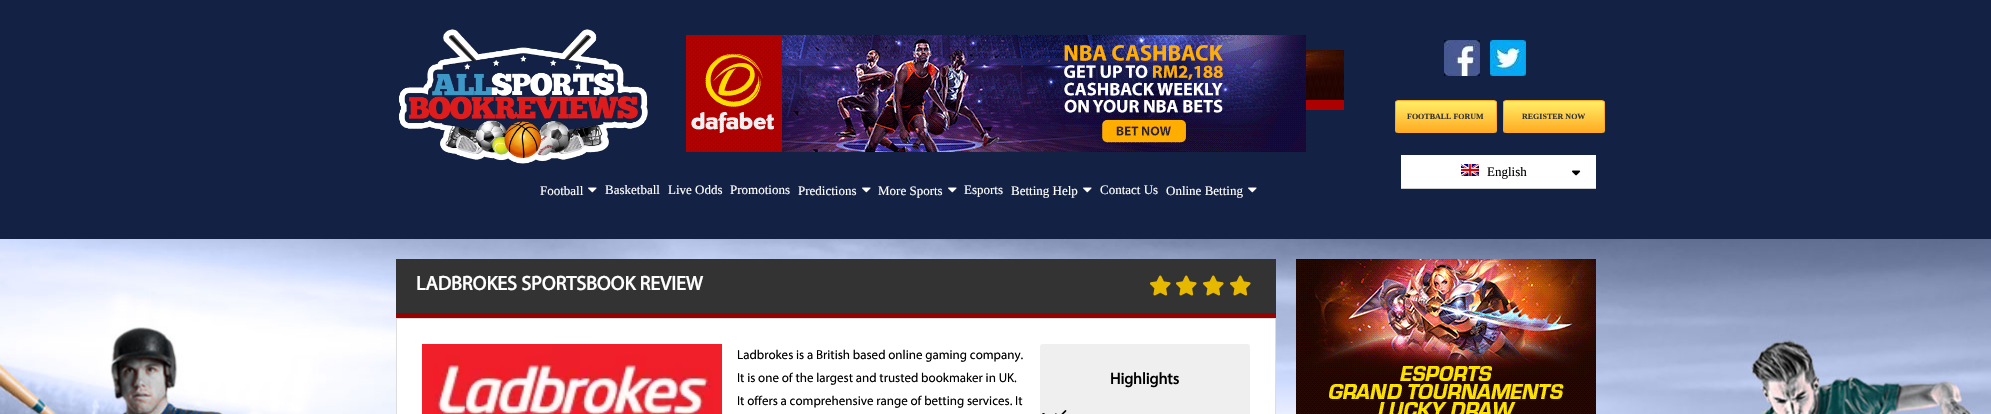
void draw(SkCanvas* canvas) {
    SkPaint paint;
    paint.setAntiAlias(true);
    canvas->clear(0xFFFFFFFF);
    canvas->drawImageRect(SkImages::DeferredFromEncodedData(SkData::MakeFromFileName("img1.png")), SkRect::MakeXYWH(0, 239, 1991, 175), SkSamplingOptions());
    paint.setColor(0xFF132145);
    canvas->drawRect(SkRect::MakeXYWH(0, 0, 1991, 239), paint);
    canvas->drawImageRect(SkImages::DeferredFromEncodedData(SkData::MakeFromFileName("img2.png")), SkRect::MakeXYWH(399, 29, 249, 135), SkSamplingOptions());
    canvas->drawImageRect(SkImages::DeferredFromEncodedData(SkData::MakeFromFileName("img3.png")), SkRect::MakeXYWH(686, 35, 620, 117), SkSamplingOptions());
    canvas->drawImageRect(SkImages::DeferredFromEncodedData(SkData::MakeFromFileName("img4.png")), SkRect::MakeXYWH(1306, 50, 38, 60), SkSamplingOptions());
    canvas->drawImageRect(SkImages::DeferredFromEncodedData(SkData::MakeFromFileName("img5.png")), SkRect::MakeXYWH(1444, 40, 36, 36), SkSamplingOptions());
    canvas->drawImageRect(SkImages::DeferredFromEncodedData(SkData::MakeFromFileName("img6.png")), SkRect::MakeXYWH(1490, 40, 36, 36), SkSamplingOptions());
    canvas->save();
    canvas->clipRect(SkRect::MakeXYWH(1392, 100, 216, 33));
    paint.setColor(0xFFFFF6AF);
    canvas->drawPath(SkPathBuilder().moveTo(1395, 130).cubicTo(1395, 138, 1411, 134, 1414, 134).lineTo(1478, 134).cubicTo(1481, 134, 1497, 138, 1497, 130).cubicTo(1497, 132, 1496, 133, 1494, 133).lineTo(1398, 133).cubicTo(1396, 133, 1395, 132, 1395, 130).close().detach(), paint);
    canvas->restore();
    canvas->save();
    canvas->clipPath(SkPathBuilder().moveTo(1398, 100).lineTo(1494, 100).cubicTo(1495.5f, 100, 1497, 101.5f, 1497, 103).lineTo(1497, 130).cubicTo(1497, 131.5f, 1495.5f, 133, 1494, 133).lineTo(1398, 133).cubicTo(1396.5f, 133, 1395, 131.5f, 1395, 130).lineTo(1395, 103).cubicTo(1395, 101.5f, 1396.5f, 100, 1398, 100).close().detach(), true);
    {
        const SkColor colors[] = {0xFFFFEC64, 0xFFFFAB23};
        const float stops[] = {0.05f, 1};
        const SkPoint ends[] = {{1446, 101}, {1446, 132}};
        paint.setShader(SkGradientShader::MakeLinear(ends, colors, stops, 2, SkTileMode::kClamp));
        paint.setAlpha(255);
    }
    canvas->drawRect(SkRect::MakeXYWH(1395, 101, 102, 31), paint);
    canvas->restore();
    paint.setStyle(SkPaint::kStroke_Style);
    paint.setStrokeWidth(1);
    paint.setShader(nullptr);
    paint.setColor(0xFFFFAA22);
    canvas->drawRoundRect(SkRect::MakeXYWH(1395.5f, 100.5f, 101, 32), 2.5f, 2.5f, paint);
    SkFont font1(fontMgr->matchFamilyStyle("Liberation Serif", SkFontStyle::Bold()), 8);
    font1.setSubpixel(true);
    paint.setStyle(SkPaint::kFill_Style);
    paint.setColor(0xFF333333);
    canvas->drawString("FOOTBALL FORUM", 1407, 119, font1, paint);
    canvas->save();
    canvas->clipRect(SkRect::MakeXYWH(1392, 100, 216, 33));
    paint.setColor(0xFFFFF6AF);
    canvas->drawPath(SkPathBuilder().moveTo(1503, 130).cubicTo(1503, 138, 1519, 134, 1522, 134).lineTo(1586, 134).cubicTo(1589, 134, 1605, 138, 1605, 130).cubicTo(1605, 132, 1604, 133, 1602, 133).lineTo(1506, 133).cubicTo(1504, 133, 1503, 132, 1503, 130).close().detach(), paint);
    canvas->restore();
    canvas->save();
    canvas->clipPath(SkPathBuilder().moveTo(1506, 100).lineTo(1602, 100).cubicTo(1603.5f, 100, 1605, 101.5f, 1605, 103).lineTo(1605, 130).cubicTo(1605, 131.5f, 1603.5f, 133, 1602, 133).lineTo(1506, 133).cubicTo(1504.5f, 133, 1503, 131.5f, 1503, 130).lineTo(1503, 103).cubicTo(1503, 101.5f, 1504.5f, 100, 1506, 100).close().detach(), true);
    {
        const SkColor colors[] = {0xFFFFEC64, 0xFFFFAB23};
        const float stops[] = {0.05f, 1};
        const SkPoint ends[] = {{1554, 101}, {1554, 132}};
        paint.setShader(SkGradientShader::MakeLinear(ends, colors, stops, 2, SkTileMode::kClamp));
        paint.setAlpha(255);
    }
    canvas->drawRect(SkRect::MakeXYWH(1503, 101, 102, 31), paint);
    canvas->restore();
    paint.setStyle(SkPaint::kStroke_Style);
    paint.setShader(nullptr);
    paint.setColor(0xFFFFAA22);
    canvas->drawRoundRect(SkRect::MakeXYWH(1503.5f, 100.5f, 101, 32), 2.5f, 2.5f, paint);
    paint.setStyle(SkPaint::kFill_Style);
    paint.setColor(0xFF333333);
    canvas->drawString("REGISTER NOW", 1522, 119, font1, paint);
    paint.setColor(0xFFFFFFFF);
    canvas->drawRect(SkRect::MakeXYWH(1401, 155, 195, 33), paint);
    paint.setColor(0xFFCCCCCC);
    canvas->drawRect(SkRect::MakeXYWH(1401, 188, 195, 1), paint);
    canvas->drawImageRect(SkImages::DeferredFromEncodedData(SkData::MakeFromFileName("img7.png")), SkRect::MakeXYWH(1461, 164, 18, 12), SkSamplingOptions());
    SkFont font2(fontMgr->matchFamilyStyle("Liberation Serif", SkFontStyle::Normal()), 13);
    font2.setSubpixel(true);
    paint.setColor(0xFF000000);
    canvas->drawString("English", 1487, 176, font2, paint);
    canvas->drawImageRect(SkImages::DeferredFromEncodedData(SkData::MakeFromFileName("img8.png")), SkRect::MakeXYWH(1572, 170, 9, 6), SkSamplingOptions());
    paint.setColor(0xFFFFFFFF);
    canvas->drawString("Football", 540, 195, font2, paint);
    canvas->drawImageRect(SkImages::DeferredFromEncodedData(SkData::MakeFromFileName("img9.png")), SkRect::MakeXYWH(588, 187, 9, 6), SkSamplingOptions());
    canvas->drawString("Basketball", 605, 194, font2, paint);
    canvas->drawString("Live Odds", 668, 194, font2, paint);
    canvas->drawString("Promotions", 730, 194, font2, paint);
    canvas->drawString("Predictions", 798, 195, font2, paint);
    canvas->drawImageRect(SkImages::DeferredFromEncodedData(SkData::MakeFromFileName("img9.png")), SkRect::MakeXYWH(862, 187, 9, 6), SkSamplingOptions());
    canvas->drawString("More Sports", 878, 195, font2, paint);
    canvas->drawImageRect(SkImages::DeferredFromEncodedData(SkData::MakeFromFileName("img9.png")), SkRect::MakeXYWH(948, 187, 9, 6), SkSamplingOptions());
    canvas->drawString("Esports", 964, 194, font2, paint);
    canvas->drawString("Betting Help", 1011, 195, font2, paint);
    canvas->drawImageRect(SkImages::DeferredFromEncodedData(SkData::MakeFromFileName("img9.png")), SkRect::MakeXYWH(1083, 187, 9, 6), SkSamplingOptions());
    canvas->drawString("Contact Us", 1100, 194, font2, paint);
    canvas->drawString("Online Betting", 1166, 195, font2, paint);
    canvas->drawImageRect(SkImages::DeferredFromEncodedData(SkData::MakeFromFileName("img9.png")), SkRect::MakeXYWH(1248, 187, 9, 6), SkSamplingOptions());
    paint.setColor(0xFF333333);
    canvas->drawRect(SkRect::MakeXYWH(396, 259, 880, 54), paint);
    paint.setColor(0xFF990000);
    canvas->drawRect(SkRect::MakeXYWH(396, 313, 880, 5), paint);
    SkFont font3(fontMgr->matchFamilyStyle("Myriad", SkFontStyle::Bold()), 20);
    font3.setSubpixel(true);
    paint.setColor(0xFFFFFFFF);
    canvas->drawString("LADBROKES SPORTSBOOK REVIEW", 416, 290, font3, paint);
    canvas->drawImageRect(SkImages::DeferredFromEncodedData(SkData::MakeFromFileName("img10.png")), SkRect::MakeXYWH(1150, 275, 21, 21), SkSamplingOptions());
    canvas->drawImageRect(SkImages::DeferredFromEncodedData(SkData::MakeFromFileName("img10.png")), SkRect::MakeXYWH(1176, 275, 21, 21), SkSamplingOptions());
    canvas->drawImageRect(SkImages::DeferredFromEncodedData(SkData::MakeFromFileName("img10.png")), SkRect::MakeXYWH(1203, 275, 21, 21), SkSamplingOptions());
    canvas->drawImageRect(SkImages::DeferredFromEncodedData(SkData::MakeFromFileName("img10.png")), SkRect::MakeXYWH(1230, 275, 21, 21), SkSamplingOptions());
    canvas->drawRect(SkRect::MakeXYWH(396.5f, 318.5f, 879, 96), paint);
    paint.setStyle(SkPaint::kStroke_Style);
    paint.setColor(0xFFDDDDDD);
    canvas->drawRect(SkRect::MakeXYWH(396.5f, 318.5f, 879, 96), paint);
    canvas->drawImageRect(SkImages::DeferredFromEncodedData(SkData::MakeFromFileName("img11.png")), SkRect::MakeXYWH(422, 344, 300, 70), SkSamplingOptions());
    SkFont font4(fontMgr->matchFamilyStyle("Myriad", SkFontStyle::Normal()), 13);
    font4.setSubpixel(true);
    paint.setStyle(SkPaint::kFill_Style);
    paint.setColor(0xFF000000);
    canvas->drawString("Ladbrokes is a British based online gaming company.", 737, 359, font4, paint);
    canvas->drawString("It is one of the largest and trusted bookmaker in UK.", 737, 382, font4, paint);
    canvas->drawString("It offers a comprehensive range of betting services. It", 737, 405, font4, paint);
    paint.setColor(0xFFEFEFEF);
    canvas->drawRoundRect(SkRect::MakeXYWH(1040, 344, 210, 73), 3, 3, paint);
    SkFont font5(fontMgr->matchFamilyStyle("Myriad", SkFontStyle::Bold()), 16);
    font5.setSubpixel(true);
    paint.setColor(0xFF000000);
    canvas->drawString("Highlights", 1110, 384, font5, paint);
    canvas->drawImageRect(SkImages::DeferredFromEncodedData(SkData::MakeFromFileName("img12.png")), SkRect::MakeXYWH(1055, 410, 12, 4), SkSamplingOptions());
    canvas->drawCircle(1043.5f, 414.5f, 1.5f, paint);
    canvas->drawImageRect(SkImages::DeferredFromEncodedData(SkData::MakeFromFileName("img13.png")), SkRect::MakeXYWH(1296, 259, 300, 155), SkSamplingOptions());
}
